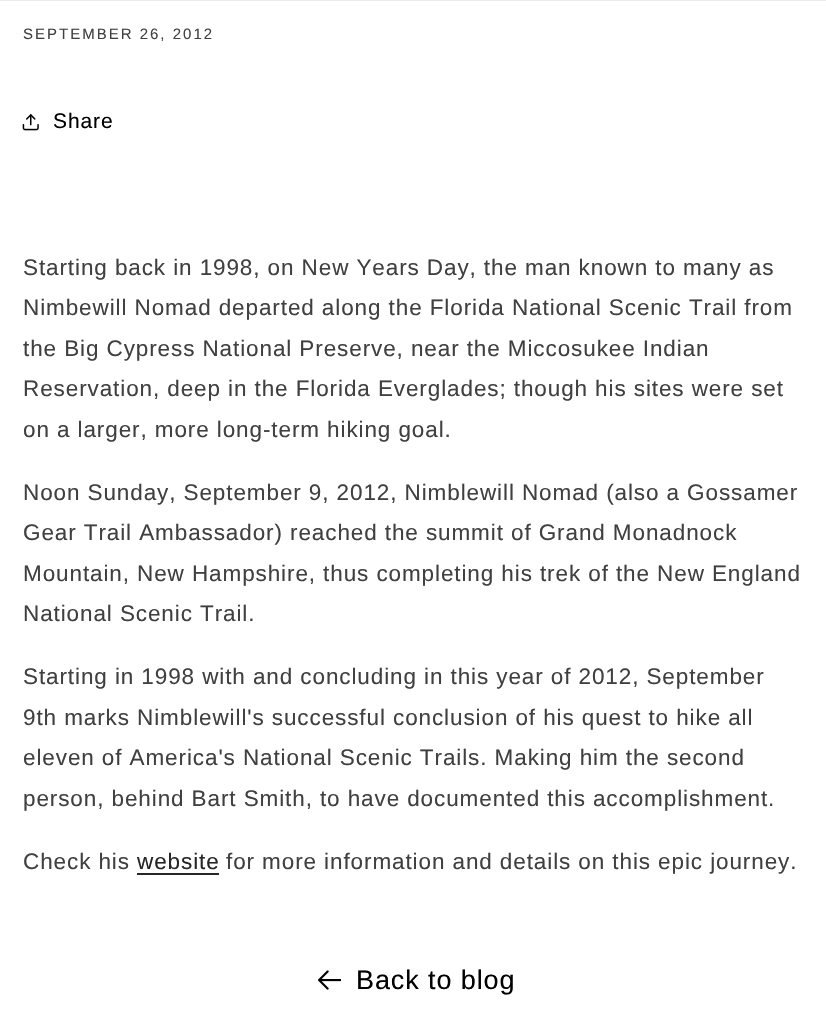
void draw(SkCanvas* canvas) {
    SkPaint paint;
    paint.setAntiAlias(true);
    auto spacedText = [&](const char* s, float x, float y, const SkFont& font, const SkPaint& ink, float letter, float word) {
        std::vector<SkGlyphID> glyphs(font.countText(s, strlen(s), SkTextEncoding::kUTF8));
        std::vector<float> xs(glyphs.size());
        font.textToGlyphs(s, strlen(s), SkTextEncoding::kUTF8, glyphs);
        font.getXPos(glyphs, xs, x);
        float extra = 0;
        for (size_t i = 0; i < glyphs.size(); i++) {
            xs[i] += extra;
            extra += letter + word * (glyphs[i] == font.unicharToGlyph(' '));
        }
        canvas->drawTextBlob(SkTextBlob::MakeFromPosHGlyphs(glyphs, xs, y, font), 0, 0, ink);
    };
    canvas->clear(0xFFFFFFFF);
    paint.setColor(0xFFEBEBEB);
    canvas->drawRect(SkRect::MakeXYWH(0, 0, 826, 1), paint);
    SkFont font1(fontMgr->matchFamilyStyle("Liberation Sans", SkFontStyle::Normal()), 15);
    font1.setSubpixel(true);
    paint.setColor(0xFF404040);
    spacedText("SEPTEMBER 26, 2012", 23, 39, font1, paint, 2, 0);
    canvas->drawImageRect(SkImages::DeferredFromEncodedData(SkData::MakeFromFileName("img1.png")), SkRect::MakeXYWH(22, 114, 17, 17), SkSamplingOptions());
    SkFont font2(fontMgr->matchFamilyStyle("Liberation Sans", SkFontStyle::Normal()), 21);
    font2.setSubpixel(true);
    paint.setColor(0xFF000000);
    spacedText("Share", 53, 128, font2, paint, 0.9f, 0);
    SkFont font3(fontMgr->matchFamilyStyle("Liberation Sans", SkFontStyle::Normal()), 22.5f);
    font3.setSubpixel(true);
    paint.setColor(0xFF404040);
    spacedText("Starting back in 1998, on New Years Day, the man known to many as", 23, 275, font3, paint, 0.9f, 0);
    spacedText("Nimbewill Nomad departed along the Florida National Scenic Trail from", 23, 315, font3, paint, 0.9f, 0);
    spacedText("the Big Cypress National Preserve, near the Miccosukee Indian", 23, 356, font3, paint, 0.9f, 0);
    spacedText("Reservation, deep in the Florida Everglades; though his sites were set", 23, 396, font3, paint, 0.9f, 0);
    spacedText("on a larger, more long-term hiking goal.", 23, 437, font3, paint, 0.9f, 0);
    spacedText("Noon Sunday, September 9, 2012, Nimblewill Nomad (also a Gossamer", 23, 500, font3, paint, 0.9f, 0);
    spacedText("Gear Trail Ambassador) reached the summit of Grand Monadnock", 23, 540, font3, paint, 0.9f, 0);
    spacedText("Mountain, New Hampshire, thus completing his trek of the New England", 23, 581, font3, paint, 0.9f, 0);
    spacedText("National Scenic Trail.", 23, 621, font3, paint, 0.9f, 0);
    spacedText("Starting in 1998 with and concluding in this year of 2012, September", 23, 684, font3, paint, 0.9f, 0);
    spacedText("9th marks Nimblewill's successful conclusion of his quest to hike all", 23, 725, font3, paint, 0.9f, 0);
    spacedText("eleven of America's National Scenic Trails. Making him the second", 23, 765, font3, paint, 0.9f, 0);
    spacedText("person, behind Bart Smith, to have documented this accomplishment.", 23, 806, font3, paint, 0.9f, 0);
    spacedText("Check his", 23, 869, font3, paint, 0.9f, 0);
    paint.setColor(0xFF262626);
    spacedText("website", 137, 869, font3, paint, 0.9f, 0);
    canvas->drawRect(SkRect::MakeXYWH(137, 873, 82, 2), paint);
    paint.setColor(0xFF404040);
    spacedText("for more information and details on this epic journey.", 226, 869, font3, paint, 0.9f, 0);
    canvas->drawImageRect(SkImages::DeferredFromEncodedData(SkData::MakeFromFileName("img2.png")), SkRect::MakeXYWH(318, 970, 23, 20), SkSamplingOptions());
    SkFont font4(fontMgr->matchFamilyStyle("Liberation Sans", SkFontStyle::Normal()), 27);
    font4.setSubpixel(true);
    paint.setColor(0xFF000000);
    spacedText("Back to blog", 356, 989, font4, paint, 0.9f, 0);
}
